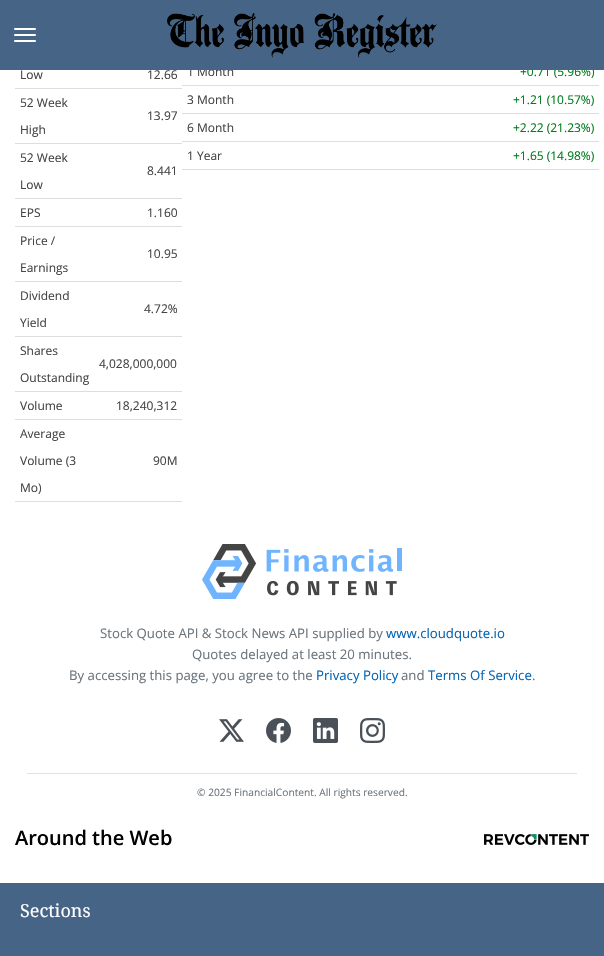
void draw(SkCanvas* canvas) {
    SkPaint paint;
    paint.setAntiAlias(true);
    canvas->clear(0xFFFFFFFF);
    SkFont font1(fontMgr->matchFamilyStyle("Open Sans", SkFontStyle::Normal()), 12);
    font1.setSubpixel(true);
    paint.setColor(0xFF444444);
    canvas->drawString("1 Month", 187, 76, font1, paint);
    paint.setColor(0xFF007C1D);
    canvas->drawString("+0.71 (5.96%)", 520, 76, font1, paint);
    paint.setColor(0xFF466486);
    canvas->drawRect(SkRect::MakeXYWH(0, 0, 604, 70), paint);
    paint.setColor(0xFFFFFFFF);
    canvas->drawRoundRect(SkRect::MakeXYWH(14, 28, 22, 2), 1, 1, paint);
    canvas->drawRoundRect(SkRect::MakeXYWH(14, 34, 22, 2), 1, 1, paint);
    canvas->drawRoundRect(SkRect::MakeXYWH(14, 40, 22, 2), 1, 1, paint);
    canvas->drawImageRect(SkImages::DeferredFromEncodedData(SkData::MakeFromFileName("img1.png")), SkRect::MakeXYWH(167, 13, 270, 45), SkSamplingOptions());
    paint.setColor(0xFFDDDDDD);
    canvas->drawRect(SkRect::MakeXYWH(15, 88, 167, 1), paint);
    paint.setColor(0xFF444444);
    canvas->drawString("Low", 20, 79, font1, paint);
    canvas->drawString("12.66", 147, 79, font1, paint);
    paint.setColor(0xFFDDDDDD);
    canvas->drawRect(SkRect::MakeXYWH(15, 143, 167, 1), paint);
    paint.setColor(0xFF444444);
    canvas->drawString("52 Week", 20, 107, font1, paint);
    canvas->drawString("High", 20, 134, font1, paint);
    canvas->drawString("13.97", 147, 120, font1, paint);
    paint.setColor(0xFFDDDDDD);
    canvas->drawRect(SkRect::MakeXYWH(15, 198, 167, 1), paint);
    paint.setColor(0xFF444444);
    canvas->drawString("52 Week", 20, 162, font1, paint);
    canvas->drawString("Low", 20, 189, font1, paint);
    canvas->drawString("8.441", 147, 175, font1, paint);
    paint.setColor(0xFFDDDDDD);
    canvas->drawRect(SkRect::MakeXYWH(15, 226, 167, 1), paint);
    paint.setColor(0xFF444444);
    canvas->drawString("EPS", 20, 217, font1, paint);
    canvas->drawString("1.160", 147, 217, font1, paint);
    paint.setColor(0xFFDDDDDD);
    canvas->drawRect(SkRect::MakeXYWH(15, 281, 167, 1), paint);
    paint.setColor(0xFF444444);
    canvas->drawString("Price /", 20, 245, font1, paint);
    canvas->drawString("Earnings", 20, 272, font1, paint);
    canvas->drawString("10.95", 147, 258, font1, paint);
    paint.setColor(0xFFDDDDDD);
    canvas->drawRect(SkRect::MakeXYWH(15, 336, 167, 1), paint);
    paint.setColor(0xFF444444);
    canvas->drawString("Dividend", 20, 300, font1, paint);
    canvas->drawString("Yield", 20, 327, font1, paint);
    canvas->drawString("4.72%", 144, 313, font1, paint);
    paint.setColor(0xFFDDDDDD);
    canvas->drawRect(SkRect::MakeXYWH(15, 391, 167, 1), paint);
    paint.setColor(0xFF444444);
    canvas->drawString("Shares", 20, 355, font1, paint);
    canvas->drawString("Outstanding", 20, 382, font1, paint);
    canvas->drawString("4,028,000,000", 99, 368, font1, paint);
    paint.setColor(0xFFDDDDDD);
    canvas->drawRect(SkRect::MakeXYWH(15, 419, 167, 1), paint);
    paint.setColor(0xFF444444);
    canvas->drawString("Volume", 20, 410, font1, paint);
    canvas->drawString("18,240,312", 116, 410, font1, paint);
    paint.setColor(0xFFDDDDDD);
    canvas->drawRect(SkRect::MakeXYWH(15, 501, 167, 1), paint);
    paint.setColor(0xFF444444);
    canvas->drawString("Average", 20, 438, font1, paint);
    canvas->drawString("Volume (3", 20, 465, font1, paint);
    canvas->drawString("Mo)", 20, 492, font1, paint);
    canvas->drawString("90M", 153, 465, font1, paint);
    paint.setColor(0xFFDDDDDD);
    canvas->drawRect(SkRect::MakeXYWH(182, 85, 417, 1), paint);
    canvas->drawRect(SkRect::MakeXYWH(182, 113, 417, 1), paint);
    paint.setColor(0xFF444444);
    canvas->drawString("3 Month", 187, 104, font1, paint);
    paint.setColor(0xFF007C1D);
    canvas->drawString("+1.21 (10.57%)", 513, 104, font1, paint);
    paint.setColor(0xFFDDDDDD);
    canvas->drawRect(SkRect::MakeXYWH(182, 141, 417, 1), paint);
    paint.setColor(0xFF444444);
    canvas->drawString("6 Month", 187, 132, font1, paint);
    paint.setColor(0xFF007C1D);
    canvas->drawString("+2.22 (21.23%)", 513, 132, font1, paint);
    paint.setColor(0xFFDDDDDD);
    canvas->drawRect(SkRect::MakeXYWH(182, 169, 417, 1), paint);
    paint.setColor(0xFF444444);
    canvas->drawString("1 Year", 187, 160, font1, paint);
    paint.setColor(0xFF007C1D);
    canvas->drawString("+1.65 (14.98%)", 513, 160, font1, paint);
    canvas->drawImageRect(SkImages::DeferredFromEncodedData(SkData::MakeFromFileName("img2.png")), SkRect::MakeXYWH(202, 544, 200, 55), SkSamplingOptions());
    SkFont font2(fontMgr->matchFamilyStyle("Open Sans", SkFontStyle::Normal()), 13.2f);
    font2.setSubpixel(true);
    paint.setColor(0xFF6C757D);
    canvas->drawString("Stock Quote API & Stock News API supplied by", 100, 638, font2, paint);
    paint.setColor(0xFF0466B6);
    canvas->drawString("www.cloudquote.io", 386, 638, font2, paint);
    paint.setColor(0xFF6C757D);
    canvas->drawString("Quotes delayed at least 20 minutes.", 192, 659, font2, paint);
    canvas->drawString("By accessing this page, you agree to the", 69, 680, font2, paint);
    paint.setColor(0xFF0466B6);
    canvas->drawString("Privacy Policy", 316, 680, font2, paint);
    paint.setColor(0xFF6C757D);
    canvas->drawString("and", 401, 680, font2, paint);
    paint.setColor(0xFF0466B6);
    canvas->drawString("Terms Of Service", 428, 680, font2, paint);
    paint.setColor(0xFF6C757D);
    canvas->drawString(".", 532, 680, font2, paint);
    canvas->drawImageRect(SkImages::DeferredFromEncodedData(SkData::MakeFromFileName("img3.png")), SkRect::MakeXYWH(219, 719, 25, 23), SkSamplingOptions());
    canvas->drawImageRect(SkImages::DeferredFromEncodedData(SkData::MakeFromFileName("img4.png")), SkRect::MakeXYWH(266, 718, 25, 25), SkSamplingOptions());
    canvas->drawImageRect(SkImages::DeferredFromEncodedData(SkData::MakeFromFileName("img5.png")), SkRect::MakeXYWH(313, 718, 25, 25), SkSamplingOptions());
    canvas->drawImageRect(SkImages::DeferredFromEncodedData(SkData::MakeFromFileName("img6.png")), SkRect::MakeXYWH(360, 718, 25, 25), SkSamplingOptions());
    paint.setColor(0xFFDEE2E6);
    canvas->drawRect(SkRect::MakeXYWH(27, 773, 550, 1), paint);
    SkFont font3(fontMgr->matchFamilyStyle("Open Sans", SkFontStyle::Normal()), 10.2f);
    font3.setSubpixel(true);
    paint.setColor(0xFF6C757D);
    canvas->drawString("© 2025 FinancialContent. All rights reserved.", 197, 796, font3, paint);
    SkFont font4(fontMgr->matchFamilyStyle("Open Sans", SkFontStyle(600, SkFontStyle::kNormal_Width, SkFontStyle::kUpright_Slant)), 20);
    font4.setSubpixel(true);
    paint.setColor(0xFF000000);
    canvas->drawString("Around the Web", 15, 845, font4, paint);
    canvas->drawImageRect(SkImages::DeferredFromEncodedData(SkData::MakeFromFileName("img7.png")), SkRect::MakeXYWH(484, 834, 105, 11), SkSamplingOptions());
    paint.setColor(0xFF466486);
    canvas->drawRect(SkRect::MakeXYWH(0, 883, 604, 73), paint);
    SkFont font5(fontMgr->matchFamilyStyle("Droid Serif", SkFontStyle::Normal()), 18);
    font5.setSubpixel(true);
    paint.setColor(0xFFFFFFFF);
    canvas->drawString("Sections", 20, 917, font5, paint);
}
